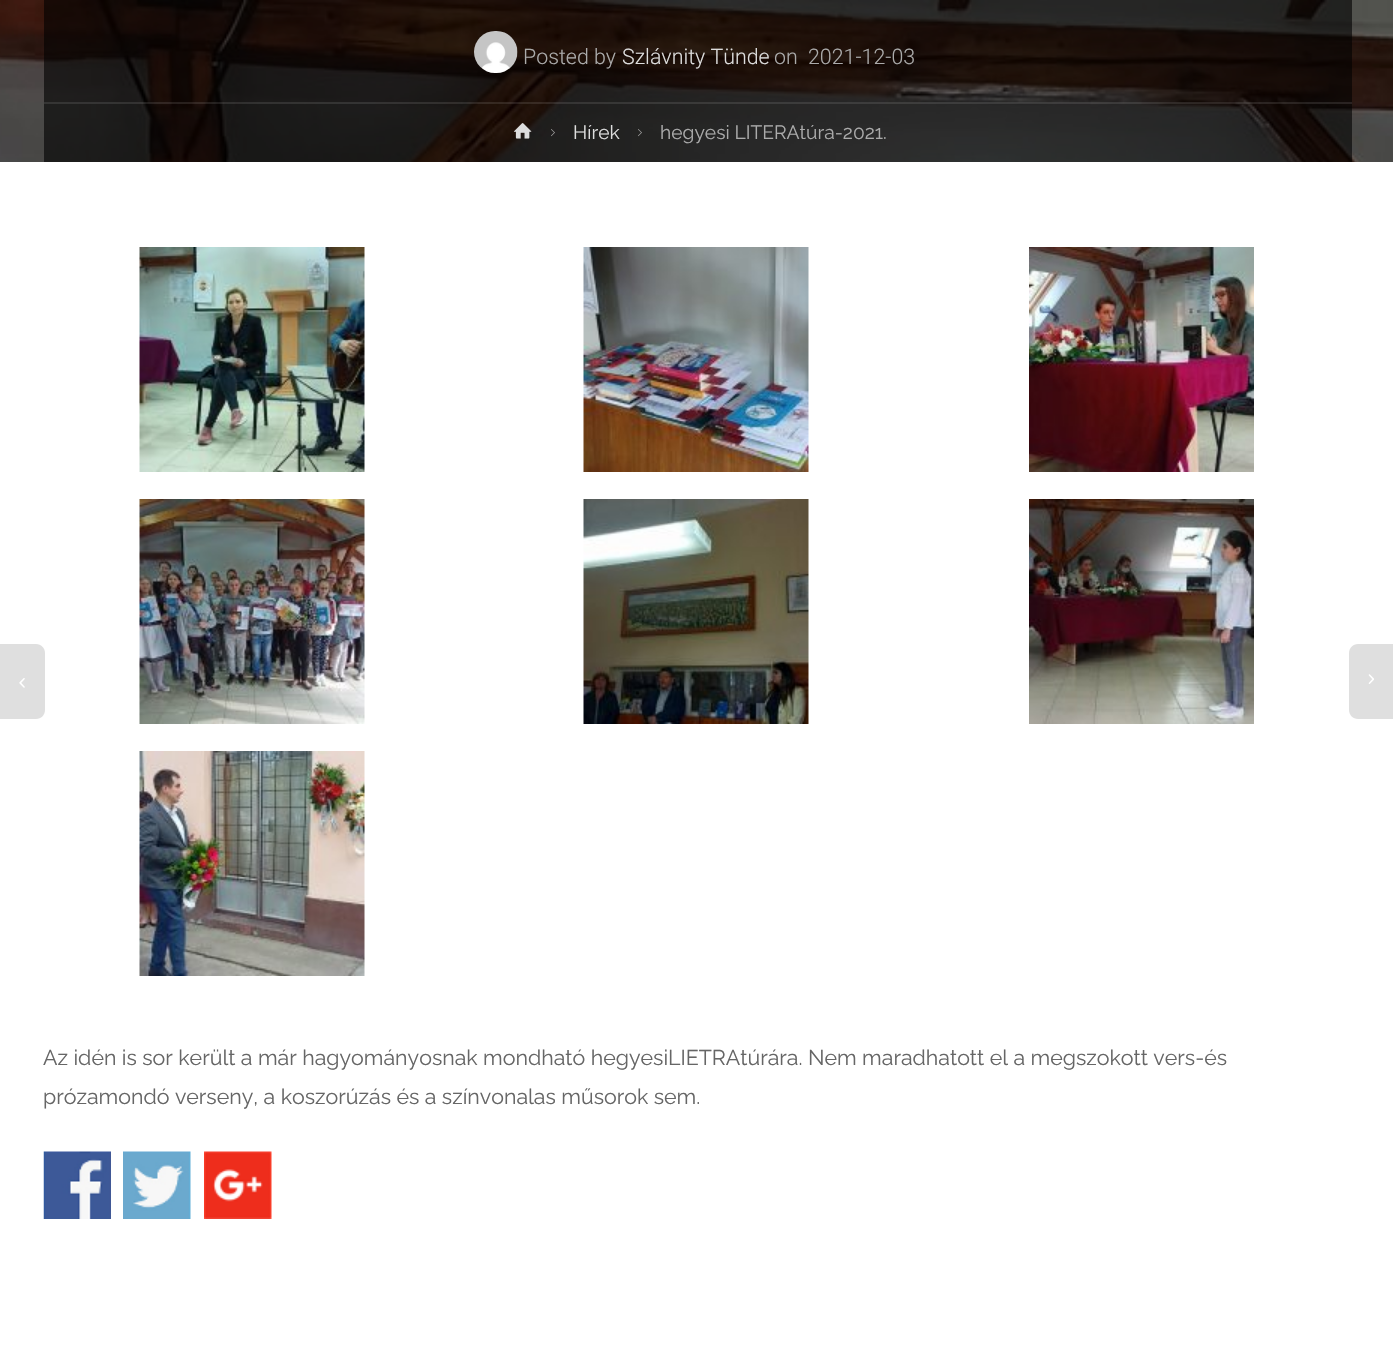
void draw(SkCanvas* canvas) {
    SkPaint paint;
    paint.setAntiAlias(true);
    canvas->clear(0xFFFFFFFF);
    canvas->drawImageRect(SkImages::DeferredFromEncodedData(SkData::MakeFromFileName("img1.png")), SkRect::MakeXYWH(0, 0, 1393, 162), SkSamplingOptions());
    canvas->drawImageRect(SkImages::DeferredFromEncodedData(SkData::MakeFromFileName("img2.png")), SkRect::MakeXYWH(474, 31, 44, 42), SkSamplingOptions());
    SkFont font1(fontMgr->matchFamilyStyle("Roboto", SkFontStyle(300, SkFontStyle::kNormal_Width, SkFontStyle::kUpright_Slant)), 21.38f);
    font1.setSubpixel(true);
    paint.setColor(0xFFABABAB);
    canvas->drawString("Posted by", 523, 64, font1, paint);
    paint.setColor(0xFFDDDDDD);
    canvas->drawString("Szlávnity Tünde", 622, 64, font1, paint);
    paint.setColor(0xFFABABAB);
    canvas->drawString("on", 774, 64, font1, paint);
    canvas->drawString("2021-12-03", 808, 64, font1, paint);
    paint.setColor(0x0D000000);
    canvas->drawRect(SkRect::MakeXYWH(1252, 107, 27, 31), paint);
    paint.setColor(0x1AFFFFFF);
    canvas->drawRect(SkRect::MakeXYWH(44, 102, 1308, 2), paint);
    canvas->drawImageRect(SkImages::DeferredFromEncodedData(SkData::MakeFromFileName("img3.png")), SkRect::MakeXYWH(513, 123, 19, 16), SkSamplingOptions());
    canvas->drawImageRect(SkImages::DeferredFromEncodedData(SkData::MakeFromFileName("img4.png")), SkRect::MakeXYWH(551, 129, 4, 8), SkSamplingOptions());
    SkFont font2(fontMgr->matchFamilyStyle("Raleway", SkFontStyle::Normal()), 19.25f);
    font2.setSubpixel(true);
    paint.setColor(0xFFDDDDDD);
    canvas->drawString("Hírek", 573, 139, font2, paint);
    canvas->drawImageRect(SkImages::DeferredFromEncodedData(SkData::MakeFromFileName("img5.png")), SkRect::MakeXYWH(638, 129, 4, 8), SkSamplingOptions());
    paint.setColor(0xFFABABAB);
    canvas->drawString("hegyesi LITERAtúra-2021.", 660, 139, font2, paint);
    paint.setColor(0xFFDFDFDF);
    canvas->drawPath(SkPathBuilder().moveTo(-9, 644).lineTo(36, 644).cubicTo(41, 644, 45, 648, 45, 653).lineTo(45, 710).cubicTo(45, 715, 41, 719, 36, 719).lineTo(-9, 719).close().detach(), paint);
    canvas->drawImageRect(SkImages::DeferredFromEncodedData(SkData::MakeFromFileName("img6.png")), SkRect::MakeXYWH(19, 678, 6, 10), SkSamplingOptions());
    canvas->drawPath(SkPathBuilder().moveTo(1358, 644).lineTo(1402, 644).lineTo(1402, 719).lineTo(1358, 719).cubicTo(1353, 719, 1349, 715, 1349, 710).lineTo(1349, 653).cubicTo(1349, 648, 1353, 644, 1358, 644).close().detach(), paint);
    canvas->drawImageRect(SkImages::DeferredFromEncodedData(SkData::MakeFromFileName("img7.png")), SkRect::MakeXYWH(1368, 674, 6, 10), SkSamplingOptions());
    canvas->drawImageRect(SkImages::DeferredFromEncodedData(SkData::MakeFromFileName("img8.png")), SkRect::MakeXYWH(139, 247, 226, 225), SkSamplingOptions());
    canvas->drawImageRect(SkImages::DeferredFromEncodedData(SkData::MakeFromFileName("img9.png")), SkRect::MakeXYWH(583, 247, 226, 225), SkSamplingOptions());
    canvas->drawImageRect(SkImages::DeferredFromEncodedData(SkData::MakeFromFileName("img10.png")), SkRect::MakeXYWH(1029, 247, 225, 225), SkSamplingOptions());
    canvas->drawImageRect(SkImages::DeferredFromEncodedData(SkData::MakeFromFileName("img11.png")), SkRect::MakeXYWH(139, 499, 226, 225), SkSamplingOptions());
    canvas->drawImageRect(SkImages::DeferredFromEncodedData(SkData::MakeFromFileName("img12.png")), SkRect::MakeXYWH(583, 499, 226, 225), SkSamplingOptions());
    canvas->drawImageRect(SkImages::DeferredFromEncodedData(SkData::MakeFromFileName("img13.png")), SkRect::MakeXYWH(1029, 499, 225, 225), SkSamplingOptions());
    canvas->drawImageRect(SkImages::DeferredFromEncodedData(SkData::MakeFromFileName("img14.png")), SkRect::MakeXYWH(139, 751, 226, 225), SkSamplingOptions());
    SkFont font3(fontMgr->matchFamilyStyle("Raleway", SkFontStyle::Normal()), 21.38f);
    font3.setSubpixel(true);
    paint.setColor(0xFF666666);
    canvas->drawString("Az idén is sor került a már hagyományosnak mondható hegyesiLIETRAtúrára. Nem maradhatott el a megszokott vers-és", 43, 1065, font3, paint);
    canvas->drawString("prózamondó verseny, a koszorúzás és a színvonalas műsorok sem.", 43, 1104, font3, paint);
    canvas->drawImageRect(SkImages::DeferredFromEncodedData(SkData::MakeFromFileName("img15.png")), SkRect::MakeXYWH(43, 1151, 68, 68), SkSamplingOptions());
    canvas->drawImageRect(SkImages::DeferredFromEncodedData(SkData::MakeFromFileName("img16.png")), SkRect::MakeXYWH(123, 1151, 68, 68), SkSamplingOptions());
    canvas->drawImageRect(SkImages::DeferredFromEncodedData(SkData::MakeFromFileName("img17.png")), SkRect::MakeXYWH(204, 1151, 68, 68), SkSamplingOptions());
}
